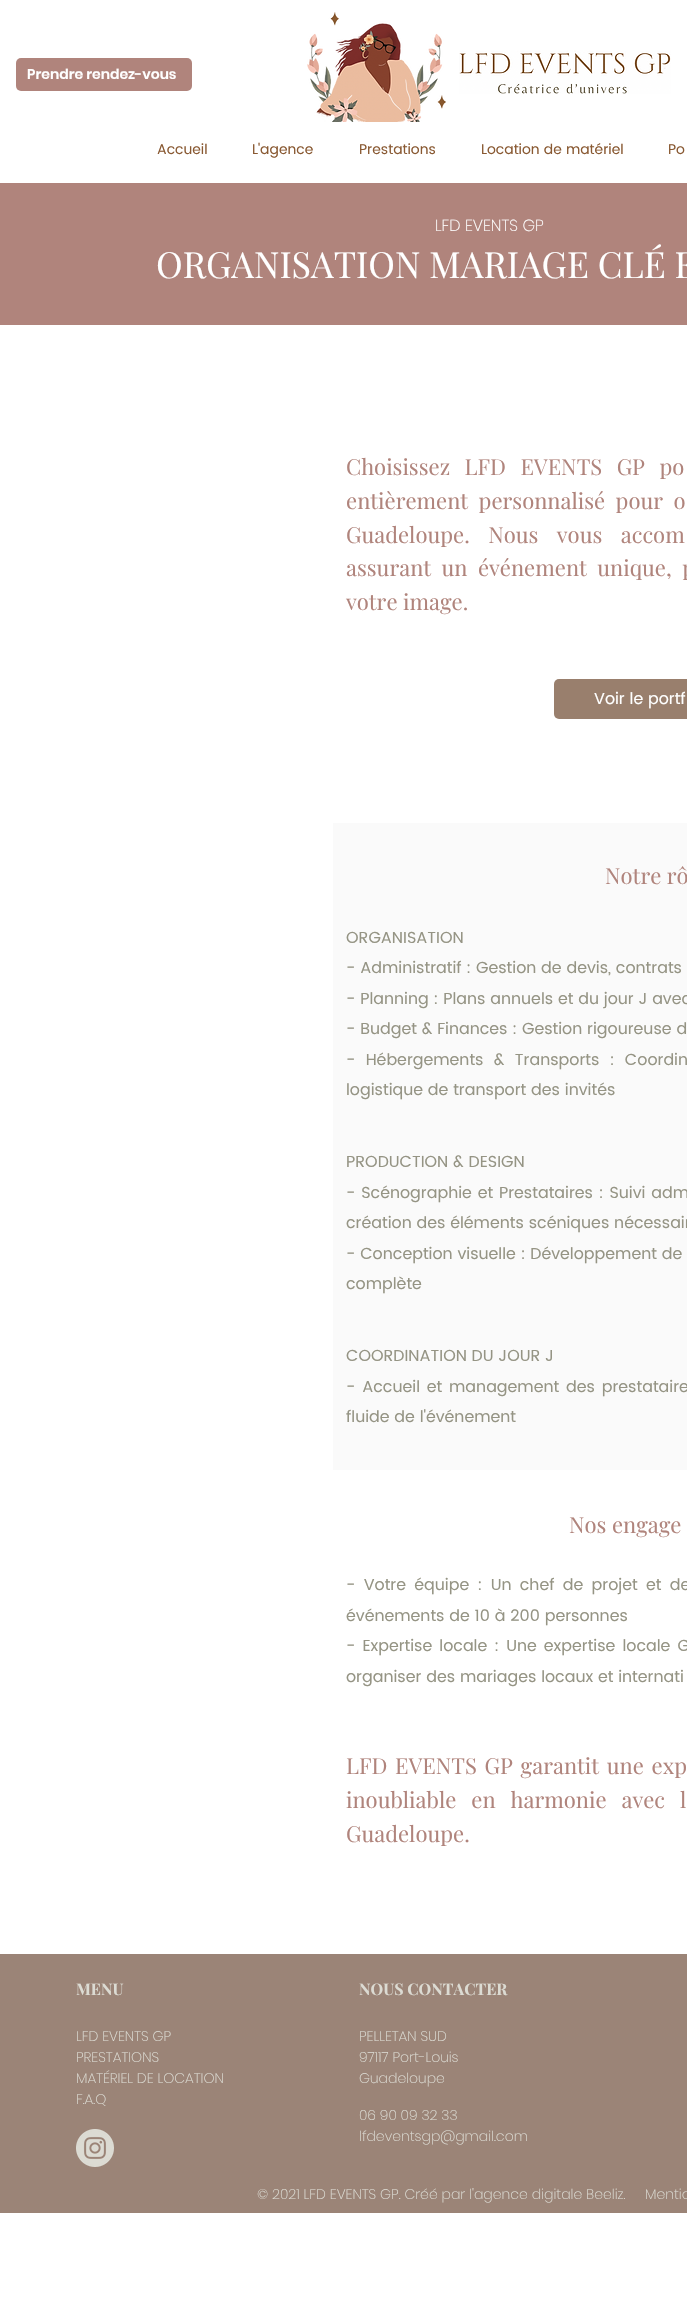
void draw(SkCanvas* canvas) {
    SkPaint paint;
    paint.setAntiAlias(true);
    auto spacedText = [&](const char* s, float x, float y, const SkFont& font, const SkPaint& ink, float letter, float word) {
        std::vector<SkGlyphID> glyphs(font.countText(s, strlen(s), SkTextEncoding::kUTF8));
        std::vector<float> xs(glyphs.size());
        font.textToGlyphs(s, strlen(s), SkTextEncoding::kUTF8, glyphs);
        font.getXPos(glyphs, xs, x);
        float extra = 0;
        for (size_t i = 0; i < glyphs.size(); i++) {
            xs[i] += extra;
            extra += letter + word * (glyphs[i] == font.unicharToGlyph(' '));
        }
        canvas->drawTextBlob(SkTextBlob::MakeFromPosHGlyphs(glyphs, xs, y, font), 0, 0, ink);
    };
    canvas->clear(0xFFFFFFFF);
    paint.setColor(0xFFB0847C);
    canvas->drawRoundRect(SkRect::MakeXYWH(16, 58, 176, 33), 5, 5, paint);
    SkFont font1(fontMgr->matchFamilyStyle("Poppins", SkFontStyle(600, SkFontStyle::kNormal_Width, SkFontStyle::kUpright_Slant)), 14);
    font1.setSubpixel(true);
    paint.setColor(0xFFFFFFFF);
    canvas->drawString("Prendre rendez-vous", 27, 79, font1, paint);
    canvas->drawImageRect(SkImages::DeferredFromEncodedData(SkData::MakeFromFileName("img1.png")), SkRect::MakeXYWH(307, 12, 139, 110), SkSamplingOptions());
    canvas->drawImageRect(SkImages::DeferredFromEncodedData(SkData::MakeFromFileName("img2.png")), SkRect::MakeXYWH(459, 50, 212, 44), SkSamplingOptions());
    SkFont font2(fontMgr->matchFamilyStyle("Poppins", SkFontStyle::Normal()), 14);
    font2.setSubpixel(true);
    paint.setColor(0xFF895932);
    canvas->drawString("Accueil", 157, 154, font2, paint);
    canvas->drawString("L'agence", 252, 154, font2, paint);
    canvas->drawString("Prestations", 359, 154, font2, paint);
    canvas->drawString("Location de matériel", 481, 154, font2, paint);
    canvas->drawString("Po", 668, 154, font2, paint);
    paint.setColor(0xFFB0847C);
    canvas->drawRect(SkRect::MakeXYWH(0, 183, 687, 142), paint);
    SkFont font3(fontMgr->matchFamilyStyle("Poppins", SkFontStyle(200, SkFontStyle::kNormal_Width, SkFontStyle::kUpright_Slant)), 16);
    font3.setSubpixel(true);
    paint.setColor(0xFFFFFFFF);
    canvas->drawString("LFD EVENTS GP", 435, 231, font3, paint);
    SkFont font4(fontMgr->matchFamilyStyle("Playfair Display", SkFontStyle::Normal()), 36);
    font4.setSubpixel(true);
    canvas->drawString("ORGANISATION MARIAGE CLÉ E", 156, 278, font4, paint);
    SkFont font5(fontMgr->matchFamilyStyle("Playfair Display", SkFontStyle::Normal()), 22);
    font5.setSubpixel(true);
    paint.setColor(0xFFB0847C);
    spacedText("Choisissez LFD EVENTS GP po", 346, 475, font5, paint, 0, 9);
    spacedText("entièrement personnalisé pour o", 346, 509, font5, paint, 0, 5);
    spacedText("Guadeloupe. Nous vous accom", 346, 543, font5, paint, 0, 13);
    spacedText("assurant un événement unique, p", 346, 576, font5, paint, 0, 5);
    canvas->drawString("votre image.", 346, 610, font5, paint);
    paint.setColor(0xFF997F6D);
    canvas->drawRoundRect(SkRect::MakeXYWH(554, 679, 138, 40), 5, 5, paint);
    SkFont font6(fontMgr->matchFamilyStyle("Poppins", SkFontStyle::Normal()), 16);
    font6.setSubpixel(true);
    paint.setColor(0xFFFFFFFF);
    canvas->drawString("Voir le portf", 594, 704, font6, paint);
    paint.setColor(0xFFFAFAFA);
    canvas->drawRect(SkRect::MakeXYWH(333, 823, 354, 647), paint);
    paint.setColor(0xFFB0847C);
    canvas->drawString("Notre rô", 605, 884, font5, paint);
    paint.setColor(0xFF959484);
    canvas->drawString("ORGANISATION", 346, 943, font6, paint);
    canvas->drawString("- Administratif : Gestion de devis, contrats", 346, 973, font6, paint);
    canvas->drawString("- Planning : Plans annuels et du jour J avec", 346, 1004, font6, paint);
    canvas->drawString("- Budget & Finances : Gestion rigoureuse d", 346, 1034, font6, paint);
    spacedText("- Hébergements & Transports : Coordin", 346, 1065, font6, paint, 0, 5.5f);
    canvas->drawString("logistique de transport des invités", 346, 1095, font6, paint);
    canvas->drawString("PRODUCTION & DESIGN", 346, 1167, font6, paint);
    spacedText("- Scénographie et Prestataires : Suivi adm", 346, 1198, font6, paint, 0, 1);
    canvas->drawString("création des éléments scéniques nécessair", 346, 1228, font6, paint);
    canvas->drawString("- Conception visuelle : Développement de", 346, 1259, font6, paint);
    canvas->drawString("complète", 346, 1289, font6, paint);
    canvas->drawString("COORDINATION DU JOUR J", 346, 1361, font6, paint);
    spacedText("- Accueil et management des prestataire", 346, 1392, font6, paint, 0, 2);
    canvas->drawString("fluide de l'événement", 346, 1422, font6, paint);
    paint.setColor(0xFFB0847C);
    canvas->drawString("Nos engage", 569, 1533, font5, paint);
    paint.setColor(0xFF959484);
    spacedText("- Votre équipe : Un chef de projet et de", 346, 1590, font6, paint, 0, 3.5f);
    canvas->drawString("événements de 10 à 200 personnes", 346, 1621, font6, paint);
    spacedText("- Expertise locale : Une expertise locale G", 346, 1651, font6, paint, 0, 2.25f);
    canvas->drawString("organiser des mariages locaux et internati", 346, 1682, font6, paint);
    paint.setColor(0xFFB0847C);
    spacedText("LFD EVENTS GP garantit une exp", 346, 1774, font5, paint, 0, 2.25f);
    spacedText("inoubliable en harmonie avec l", 346, 1808, font5, paint, 0, 9.5f);
    canvas->drawString("Guadeloupe.", 346, 1842, font5, paint);
    paint.setColor(0xFF9B8477);
    canvas->drawRect(SkRect::MakeXYWH(0, 1954, 687, 259), paint);
    SkFont font7(fontMgr->matchFamilyStyle("Playfair Display", SkFontStyle::Bold()), 16);
    font7.setSubpixel(true);
    paint.setColor(0xFFDCDBD3);
    canvas->drawString("MENU", 76, 1995, font7, paint);
    SkFont font8(fontMgr->matchFamilyStyle("Poppins", SkFontStyle(200, SkFontStyle::kNormal_Width, SkFontStyle::kUpright_Slant)), 14);
    font8.setSubpixel(true);
    canvas->drawString("LFD EVENTS GP", 76, 2041, font8, paint);
    canvas->drawString("PRESTATIONS", 76, 2062, font8, paint);
    canvas->drawString("MATÉRIEL DE LOCATION", 76, 2083, font8, paint);
    canvas->drawString("NOUS CONTACTER", 359, 1995, font7, paint);
    canvas->drawString("PELLETAN SUD", 359, 2041, font8, paint);
    canvas->drawString("97117 Port-Louis", 359, 2062, font8, paint);
    canvas->drawString("Guadeloupe", 359, 2083, font8, paint);
    canvas->drawString("06 90 09 32 33", 359, 2120, font8, paint);
    canvas->drawString("lfdeventsgp@gmail.com", 359, 2141, font8, paint);
    canvas->drawString("F.A.Q", 76, 2104, font8, paint);
    canvas->drawImageRect(SkImages::DeferredFromEncodedData(SkData::MakeFromFileName("img3.png")), SkRect::MakeXYWH(76, 2129, 38, 38), SkSamplingOptions());
    canvas->drawString("© 2021 LFD EVENTS GP. Créé par l'agence digitale Beeliz.", 257, 2199, font8, paint);
    canvas->drawString("Mentio", 645, 2199, font8, paint);
}
